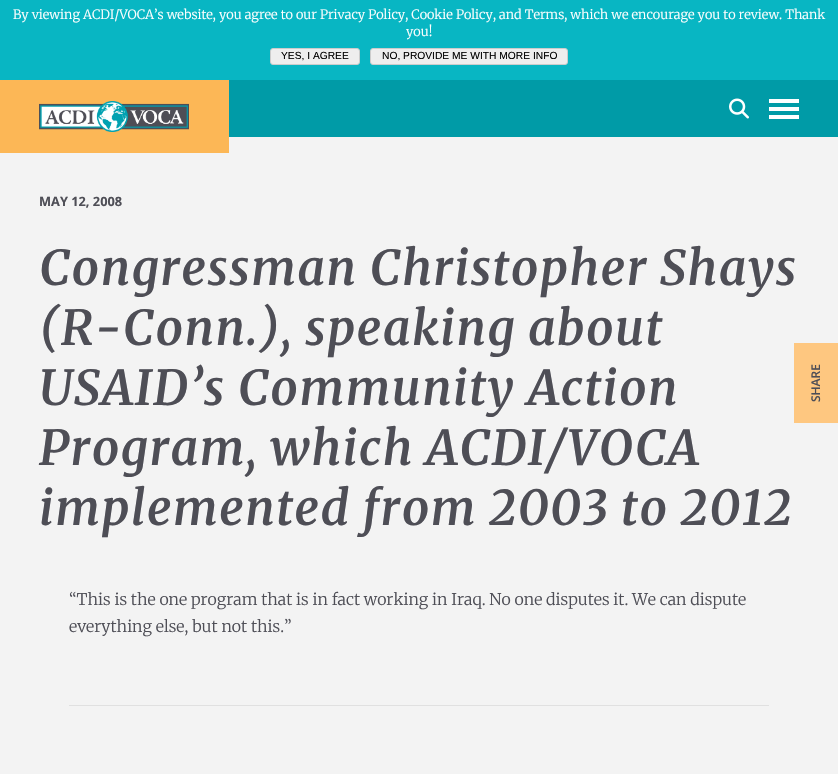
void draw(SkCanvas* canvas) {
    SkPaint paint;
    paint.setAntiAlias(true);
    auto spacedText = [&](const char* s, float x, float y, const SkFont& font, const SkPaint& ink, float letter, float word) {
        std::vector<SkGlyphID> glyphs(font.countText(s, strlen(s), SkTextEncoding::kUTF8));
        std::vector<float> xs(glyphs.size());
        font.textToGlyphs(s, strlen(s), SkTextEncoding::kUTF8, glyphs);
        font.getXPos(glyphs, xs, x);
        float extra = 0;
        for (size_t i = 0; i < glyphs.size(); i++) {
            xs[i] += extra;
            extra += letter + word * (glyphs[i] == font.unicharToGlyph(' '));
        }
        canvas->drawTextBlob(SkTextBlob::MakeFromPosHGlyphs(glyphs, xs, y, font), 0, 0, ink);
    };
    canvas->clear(0xFFF3F3F3);
    paint.setColor(0xFF009BA7);
    canvas->drawRect(SkRect::MakeXYWH(229, 80, 609, 57), paint);
    paint.setColor(0xFF08B6C3);
    canvas->drawRect(SkRect::MakeXYWH(0, 0, 838, 80), paint);
    SkFont font1(fontMgr->matchFamilyStyle("Merriweather", SkFontStyle(300, SkFontStyle::kNormal_Width, SkFontStyle::kUpright_Slant)), 12.8f);
    font1.setSubpixel(true);
    paint.setColor(0xFFFFFFFF);
    canvas->drawString("By viewing ACDI/VOCA’s website, you agree to our Privacy Policy, Cookie Policy, and Terms, which we encourage you to review. Thank", 13, 19, font1, paint);
    canvas->drawString("you!", 406, 36, font1, paint);
    paint.setColor(0xFFEEEEEE);
    canvas->drawRoundRect(SkRect::MakeXYWH(270.5f, 48.5f, 89, 16), 2.5f, 2.5f, paint);
    paint.setStyle(SkPaint::kStroke_Style);
    paint.setStrokeWidth(1);
    paint.setColor(0xFFCCCCCC);
    canvas->drawRoundRect(SkRect::MakeXYWH(270.5f, 48.5f, 89, 16), 2.5f, 2.5f, paint);
    SkFont font2(fontMgr->matchFamilyStyle("Liberation Sans", SkFontStyle::Normal()), 10.25f);
    font2.setSubpixel(true);
    paint.setStyle(SkPaint::kFill_Style);
    paint.setColor(0xFF000000);
    canvas->drawString("YES, I AGREE", 281, 59, font2, paint);
    paint.setColor(0xFFEEEEEE);
    canvas->drawRoundRect(SkRect::MakeXYWH(370.5f, 48.5f, 197, 16), 2.5f, 2.5f, paint);
    paint.setStyle(SkPaint::kStroke_Style);
    paint.setColor(0xFFCCCCCC);
    canvas->drawRoundRect(SkRect::MakeXYWH(370.5f, 48.5f, 197, 16), 2.5f, 2.5f, paint);
    paint.setStyle(SkPaint::kFill_Style);
    paint.setColor(0xFF000000);
    canvas->drawString("NO, PROVIDE ME WITH MORE INFO", 382, 59, font2, paint);
    paint.setColor(0xFFFCB756);
    canvas->drawRect(SkRect::MakeXYWH(0, 80, 229, 73), paint);
    canvas->drawImageRect(SkImages::DeferredFromEncodedData(SkData::MakeFromFileName("img1.png")), SkRect::MakeXYWH(39, 101, 150, 31), SkSamplingOptions());
    canvas->drawImageRect(SkImages::DeferredFromEncodedData(SkData::MakeFromFileName("img2.png")), SkRect::MakeXYWH(729, 98, 20, 21), SkSamplingOptions());
    paint.setColor(0xFFFFFFFF);
    canvas->drawRect(SkRect::MakeXYWH(769, 99, 30, 4), paint);
    canvas->drawRect(SkRect::MakeXYWH(769, 115, 30, 4), paint);
    canvas->drawRect(SkRect::MakeXYWH(769, 107, 30, 4), paint);
    SkFont font3(fontMgr->matchFamilyStyle("Open Sans", SkFontStyle::Bold()), 12.8f);
    font3.setSubpixel(true);
    paint.setColor(0xFF4E4E56);
    canvas->drawString("MAY 12, 2008", 39, 206, font3, paint);
    SkFont font4(fontMgr->matchFamilyStyle("Merriweather", SkFontStyle(600, SkFontStyle::kNormal_Width, SkFontStyle::kItalic_Slant)), 48);
    font4.setSubpixel(true);
    spacedText("Congressman Christopher Shays", 39, 285, font4, paint, 1.5f, 0);
    spacedText("(R-Conn.), speaking about", 39, 345, font4, paint, 1.5f, 0);
    spacedText("USAID’s Community Action", 39, 405, font4, paint, 1.5f, 0);
    spacedText("Program, which ACDI/VOCA", 39, 465, font4, paint, 1.5f, 0);
    spacedText("implemented from 2003 to 2012", 39, 525, font4, paint, 1.5f, 0);
    SkFont font5(fontMgr->matchFamilyStyle("Merriweather", SkFontStyle(300, SkFontStyle::kNormal_Width, SkFontStyle::kUpright_Slant)), 16);
    font5.setSubpixel(true);
    canvas->drawString("“This is the one program that is in fact working in Iraq. No one disputes it. We can dispute", 69, 605, font5, paint);
    canvas->drawString("everything else, but not this.”", 69, 632, font5, paint);
    paint.setColor(0xFFE0E0E0);
    canvas->drawRect(SkRect::MakeXYWH(69, 705, 700, 1), paint);
    paint.setColor(0xFFFEC780);
    canvas->drawRect(SkRect::MakeXYWH(794, 343, 44, 80), paint);
    SkFont font6(fontMgr->matchFamilyStyle("Open Sans", SkFontStyle(600, SkFontStyle::kNormal_Width, SkFontStyle::kUpright_Slant)), 12);
    font6.setSubpixel(true);
    paint.setColor(0xFF4E4E56);
    canvas->save();
    canvas->rotate(-90, 820, 402);
    canvas->drawString("SHARE", 820, 402, font6, paint);
    canvas->restore();
}
